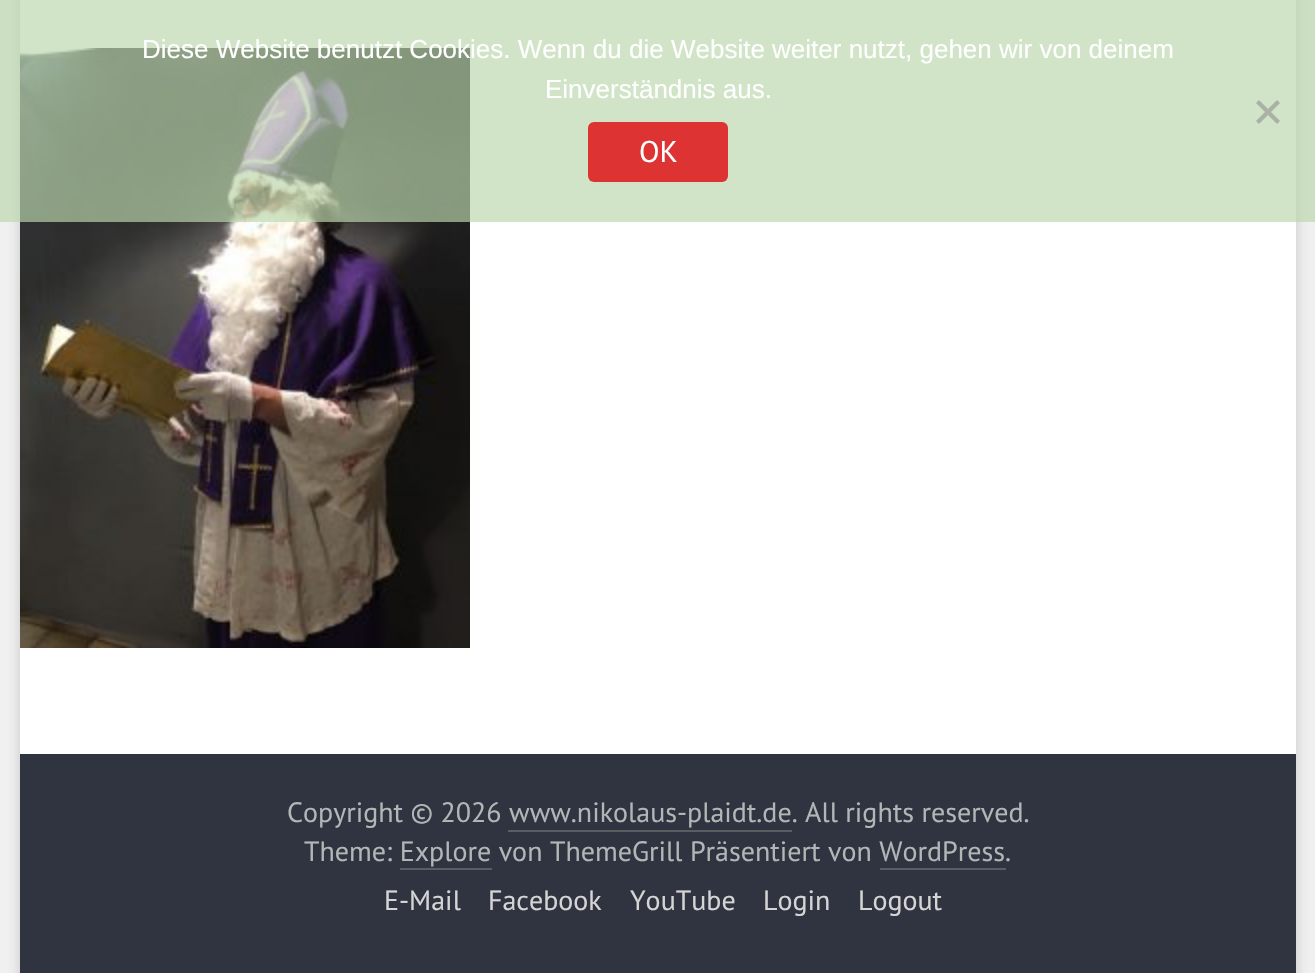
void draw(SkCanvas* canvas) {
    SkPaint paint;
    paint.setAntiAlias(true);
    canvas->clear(0xFFF0F0F0);
    paint.setColor(0x4D646464);
    paint.setMaskFilter(SkMaskFilter::MakeBlur(kNormal_SkBlurStyle, 6));
    canvas->drawRect(SkRect::MakeXYWH(20, -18, 1276, 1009), paint);
    paint.setMaskFilter(nullptr);
    paint.setColor(0xFFFFFFFF);
    canvas->drawRect(SkRect::MakeXYWH(20, 0, 1276, 754), paint);
    canvas->drawImageRect(SkImages::DeferredFromEncodedData(SkData::MakeFromFileName("img1.png")), SkRect::MakeXYWH(20, 48, 450, 600), SkSamplingOptions());
    paint.setColor(0xABBBD6AD);
    canvas->drawRect(SkRect::MakeXYWH(0, 0, 1315, 222), paint);
    SkFont font1(fontMgr->matchFamilyStyle("Liberation Sans", SkFontStyle::Normal()), 26);
    font1.setSubpixel(true);
    paint.setColor(0xFFFFFFFF);
    canvas->drawString("Diese Website benutzt Cookies. Wenn du die Website weiter nutzt, gehen wir von deinem", 142, 58, font1, paint);
    canvas->drawString("Einverständnis aus.", 545, 98, font1, paint);
    paint.setColor(0xFFA9B2A4);
    canvas->drawPath(SkPathBuilder().moveTo(1277, 100).lineTo(1280, 103).lineTo(1259, 124).lineTo(1256, 121).close().detach(), paint);
    canvas->drawPath(SkPathBuilder().moveTo(1256, 103).lineTo(1259, 100).lineTo(1280, 121).lineTo(1277, 124).close().detach(), paint);
    paint.setColor(0xFFDD3333);
    canvas->drawRoundRect(SkRect::MakeXYWH(588, 122, 140, 60), 6, 6, paint);
    SkFont font2(fontMgr->matchFamilyStyle("PT Sans", SkFontStyle::Normal()), 30);
    font2.setSubpixel(true);
    paint.setColor(0xFFFFFFFF);
    canvas->drawString("OK", 639, 162, font2, paint);
    paint.setColor(0xFF303440);
    canvas->drawRect(SkRect::MakeXYWH(20, 754, 1276, 219), paint);
    SkFont font3(fontMgr->matchFamilyStyle("PT Sans", SkFontStyle::Normal()), 28);
    font3.setSubpixel(true);
    paint.setColor(0xFFB1B6B6);
    canvas->drawString("Copyright © 2026 www.nikolaus-plaidt.de. All rights reserved.", 287, 822, font3, paint);
    paint.setColor(0xFF5A5D62);
    canvas->drawRect(SkRect::MakeXYWH(508, 830, 284, 2), paint);
    paint.setColor(0xFFB1B6B6);
    canvas->drawString("Theme: Explore von ThemeGrill Präsentiert von WordPress.", 304, 861, font3, paint);
    paint.setColor(0xFF5A5D62);
    canvas->drawRect(SkRect::MakeXYWH(400, 868, 92, 2), paint);
    canvas->drawRect(SkRect::MakeXYWH(880, 868, 126, 2), paint);
    paint.setColor(0xFFD5D5D5);
    canvas->drawString("E-Mail", 384, 910, font3, paint);
    canvas->drawString("Facebook", 488, 910, font3, paint);
    canvas->drawString("YouTube", 630, 910, font3, paint);
    canvas->drawString("Login", 763, 910, font3, paint);
    canvas->drawString("Logout", 858, 910, font3, paint);
}
